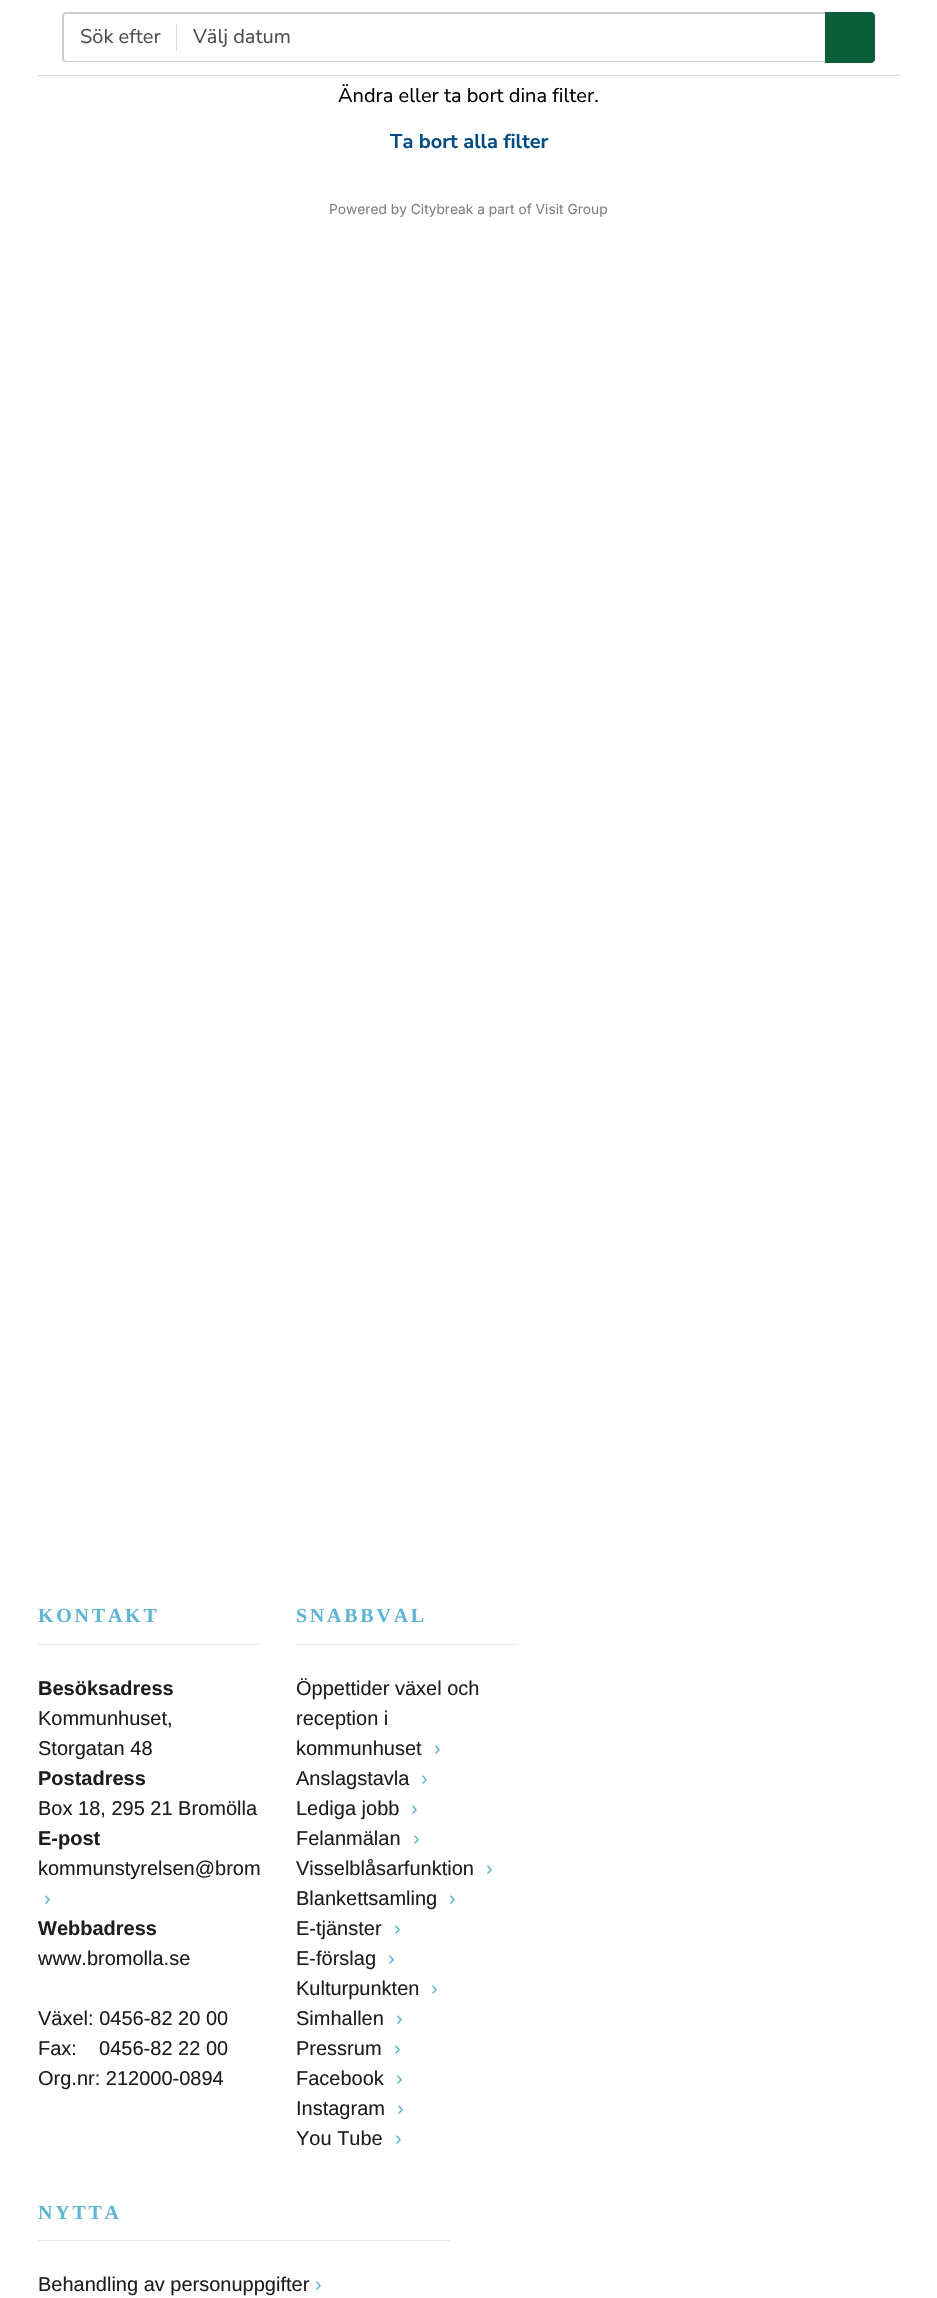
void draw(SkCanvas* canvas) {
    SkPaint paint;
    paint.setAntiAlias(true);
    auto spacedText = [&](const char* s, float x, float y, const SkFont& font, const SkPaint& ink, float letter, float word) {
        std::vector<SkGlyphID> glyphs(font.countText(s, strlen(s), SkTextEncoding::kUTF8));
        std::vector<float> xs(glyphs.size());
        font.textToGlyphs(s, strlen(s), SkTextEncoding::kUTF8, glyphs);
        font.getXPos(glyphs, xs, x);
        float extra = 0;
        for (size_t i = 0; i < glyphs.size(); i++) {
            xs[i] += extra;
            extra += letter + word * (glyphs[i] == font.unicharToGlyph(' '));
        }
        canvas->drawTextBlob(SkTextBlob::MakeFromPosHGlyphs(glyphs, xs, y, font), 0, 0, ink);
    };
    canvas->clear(0xFFFFFFFF);
    paint.setColor(0xFFD9D9D9);
    canvas->drawRect(SkRect::MakeXYWH(38, 75, 862, 1), paint);
    paint.setColor(0xFFCCCCCC);
    canvas->drawPath(SkPathBuilder(SkPathFillType::kEvenOdd).moveTo(66, 12).lineTo(825, 12).lineTo(825, 62).lineTo(66, 62).cubicTo(64, 62, 62, 61, 62, 59).lineTo(62, 16).cubicTo(62, 14, 64, 12, 66, 12).close().moveTo(66, 14).lineTo(825, 14).lineTo(825, 61).lineTo(66, 61).cubicTo(65, 61, 64, 60, 64, 59).lineTo(64, 16).cubicTo(64, 15, 65, 14, 66, 14).close().detach(), paint);
    SkFont font1(fontMgr->matchFamilyStyle("Nunito Sans", SkFontStyle::Normal()), 20);
    font1.setSubpixel(true);
    paint.setColor(0xFF4D4D4D);
    canvas->drawString("Sök efter", 80, 43, font1, paint);
    paint.setColor(0xFFDBDBDB);
    canvas->drawRect(SkRect::MakeXYWH(176, 24, 1, 27), paint);
    paint.setColor(0xFF4D4D4D);
    canvas->drawString("Välj datum", 193, 43, font1, paint);
    paint.setColor(0xFF0A5E38);
    canvas->drawPath(SkPathBuilder().moveTo(825, 13).lineTo(871, 13).cubicTo(873, 13, 875, 15, 875, 17).lineTo(875, 59).cubicTo(875, 61, 873, 63, 871, 63).lineTo(825, 63).close().detach(), paint);
    canvas->drawPath(SkPathBuilder(SkPathFillType::kEvenOdd).moveTo(825, 12).lineTo(871, 12).cubicTo(873, 12, 875, 14, 875, 16).lineTo(875, 59).cubicTo(875, 61, 873, 62, 871, 62).lineTo(825, 62).close().moveTo(825, 14).lineTo(871, 14).cubicTo(873, 14, 874, 15, 874, 16).lineTo(874, 59).cubicTo(874, 60, 873, 61, 871, 61).lineTo(825, 61).close().detach(), paint);
    paint.setColor(0xFF000000);
    canvas->drawString("Ändra eller ta bort dina filter.", 338, 102, font1, paint);
    SkFont font2(fontMgr->matchFamilyStyle("Nunito Sans", SkFontStyle::Bold()), 20);
    font2.setSubpixel(true);
    paint.setColor(0xFF004B82);
    canvas->drawString("Ta bort alla filter", 390, 148, font2, paint);
    SkFont font3(fontMgr->matchFamilyStyle("Inter", SkFontStyle::Normal()), 13.75f);
    font3.setSubpixel(true);
    paint.setColor(0xFF808080);
    canvas->drawString("Powered by Citybreak a part of Visit Group", 329, 214, font3, paint);
    paint.setColor(0xFFECE7DD);
    canvas->drawRect(SkRect::MakeXYWH(38, 1644, 221, 1), paint);
    SkFont font4(fontMgr->matchFamilyStyle("Liberation Serif", SkFontStyle::Bold()), 20);
    font4.setSubpixel(true);
    paint.setColor(0xFF60B5D3);
    spacedText("KONTAKT", 38, 1622, font4, paint, 2.75f, 0);
    SkFont font5(fontMgr->matchFamilyStyle("Liberation Sans", SkFontStyle::Bold()), 20);
    font5.setSubpixel(true);
    paint.setColor(0xFF1D1D1D);
    canvas->drawString("Besöksadress", 38, 1695, font5, paint);
    SkFont font6(fontMgr->matchFamilyStyle("Liberation Sans", SkFontStyle::Normal()), 20);
    font6.setSubpixel(true);
    canvas->drawString("Kommunhuset,", 38, 1725, font6, paint);
    canvas->drawString("Storgatan 48", 38, 1755, font6, paint);
    canvas->drawString("Postadress", 38, 1785, font5, paint);
    canvas->drawString("Box 18, 295 21 Bromölla", 38, 1815, font6, paint);
    canvas->drawString("E-post", 38, 1845, font5, paint);
    canvas->drawString("kommunstyrelsen@brom", 38, 1875, font6, paint);
    paint.setColor(0xFF60B5D3);
    canvas->drawString("›", 44, 1905, font6, paint);
    paint.setColor(0xFF1D1D1D);
    canvas->drawString("Webbadress", 38, 1935, font5, paint);
    canvas->drawString("www.bromolla.se", 38, 1965, font6, paint);
    canvas->drawString("Växel: 0456-82 20 00", 38, 2025, font6, paint);
    canvas->drawString("Fax:    0456-82 22 00", 38, 2055, font6, paint);
    canvas->drawString("Org.nr: 212000-0894", 38, 2085, font6, paint);
    paint.setColor(0xFFECE7DD);
    canvas->drawRect(SkRect::MakeXYWH(296, 1644, 222, 1), paint);
    paint.setColor(0xFF60B5D3);
    spacedText("SNABBVAL", 296, 1622, font4, paint, 2.75f, 0);
    paint.setColor(0xFF1D1D1D);
    canvas->drawString("Öppettider växel och", 296, 1695, font6, paint);
    canvas->drawString("reception i", 296, 1725, font6, paint);
    canvas->drawString("kommunhuset", 296, 1755, font6, paint);
    paint.setColor(0xFF60B5D3);
    canvas->drawString("›", 434, 1755, font6, paint);
    paint.setColor(0xFF1D1D1D);
    canvas->drawString("Anslagstavla", 296, 1785, font6, paint);
    paint.setColor(0xFF60B5D3);
    canvas->drawString("›", 421, 1785, font6, paint);
    paint.setColor(0xFF1D1D1D);
    canvas->drawString("Lediga jobb", 296, 1815, font6, paint);
    paint.setColor(0xFF60B5D3);
    canvas->drawString("›", 411, 1815, font6, paint);
    paint.setColor(0xFF1D1D1D);
    canvas->drawString("Felanmälan", 296, 1845, font6, paint);
    paint.setColor(0xFF60B5D3);
    canvas->drawString("›", 413, 1845, font6, paint);
    paint.setColor(0xFF1D1D1D);
    canvas->drawString("Visselblåsarfunktion", 296, 1875, font6, paint);
    paint.setColor(0xFF60B5D3);
    canvas->drawString("›", 486, 1875, font6, paint);
    paint.setColor(0xFF1D1D1D);
    canvas->drawString("Blankettsamling", 296, 1905, font6, paint);
    paint.setColor(0xFF60B5D3);
    canvas->drawString("›", 449, 1905, font6, paint);
    paint.setColor(0xFF1D1D1D);
    canvas->drawString("E-tjänster", 296, 1935, font6, paint);
    paint.setColor(0xFF60B5D3);
    canvas->drawString("›", 394, 1935, font6, paint);
    paint.setColor(0xFF1D1D1D);
    canvas->drawString("E-förslag", 296, 1965, font6, paint);
    paint.setColor(0xFF60B5D3);
    canvas->drawString("›", 388, 1965, font6, paint);
    paint.setColor(0xFF1D1D1D);
    canvas->drawString("Kulturpunkten", 296, 1995, font6, paint);
    paint.setColor(0xFF60B5D3);
    canvas->drawString("›", 431, 1995, font6, paint);
    paint.setColor(0xFF1D1D1D);
    canvas->drawString("Simhallen", 296, 2025, font6, paint);
    paint.setColor(0xFF60B5D3);
    canvas->drawString("›", 396, 2025, font6, paint);
    paint.setColor(0xFF1D1D1D);
    canvas->drawString("Pressrum", 296, 2055, font6, paint);
    paint.setColor(0xFF60B5D3);
    canvas->drawString("›", 394, 2055, font6, paint);
    paint.setColor(0xFF1D1D1D);
    canvas->drawString("Facebook", 296, 2085, font6, paint);
    paint.setColor(0xFF60B5D3);
    canvas->drawString("›", 396, 2085, font6, paint);
    paint.setColor(0xFF1D1D1D);
    canvas->drawString("Instagram", 296, 2115, font6, paint);
    paint.setColor(0xFF60B5D3);
    canvas->drawString("›", 397, 2115, font6, paint);
    paint.setColor(0xFF1D1D1D);
    canvas->drawString("You Tube", 296, 2145, font6, paint);
    paint.setColor(0xFF60B5D3);
    canvas->drawString("›", 395, 2145, font6, paint);
    paint.setColor(0xFFECE7DD);
    canvas->drawRect(SkRect::MakeXYWH(38, 2240, 412, 1), paint);
    paint.setColor(0xFF60B5D3);
    spacedText("NYTTA", 38, 2219, font4, paint, 2.75f, 0);
    paint.setColor(0xFF1D1D1D);
    canvas->drawString("Behandling av personuppgifter", 38, 2291, font6, paint);
    paint.setColor(0xFF60B5D3);
    canvas->drawString("›", 315, 2291, font6, paint);
}
